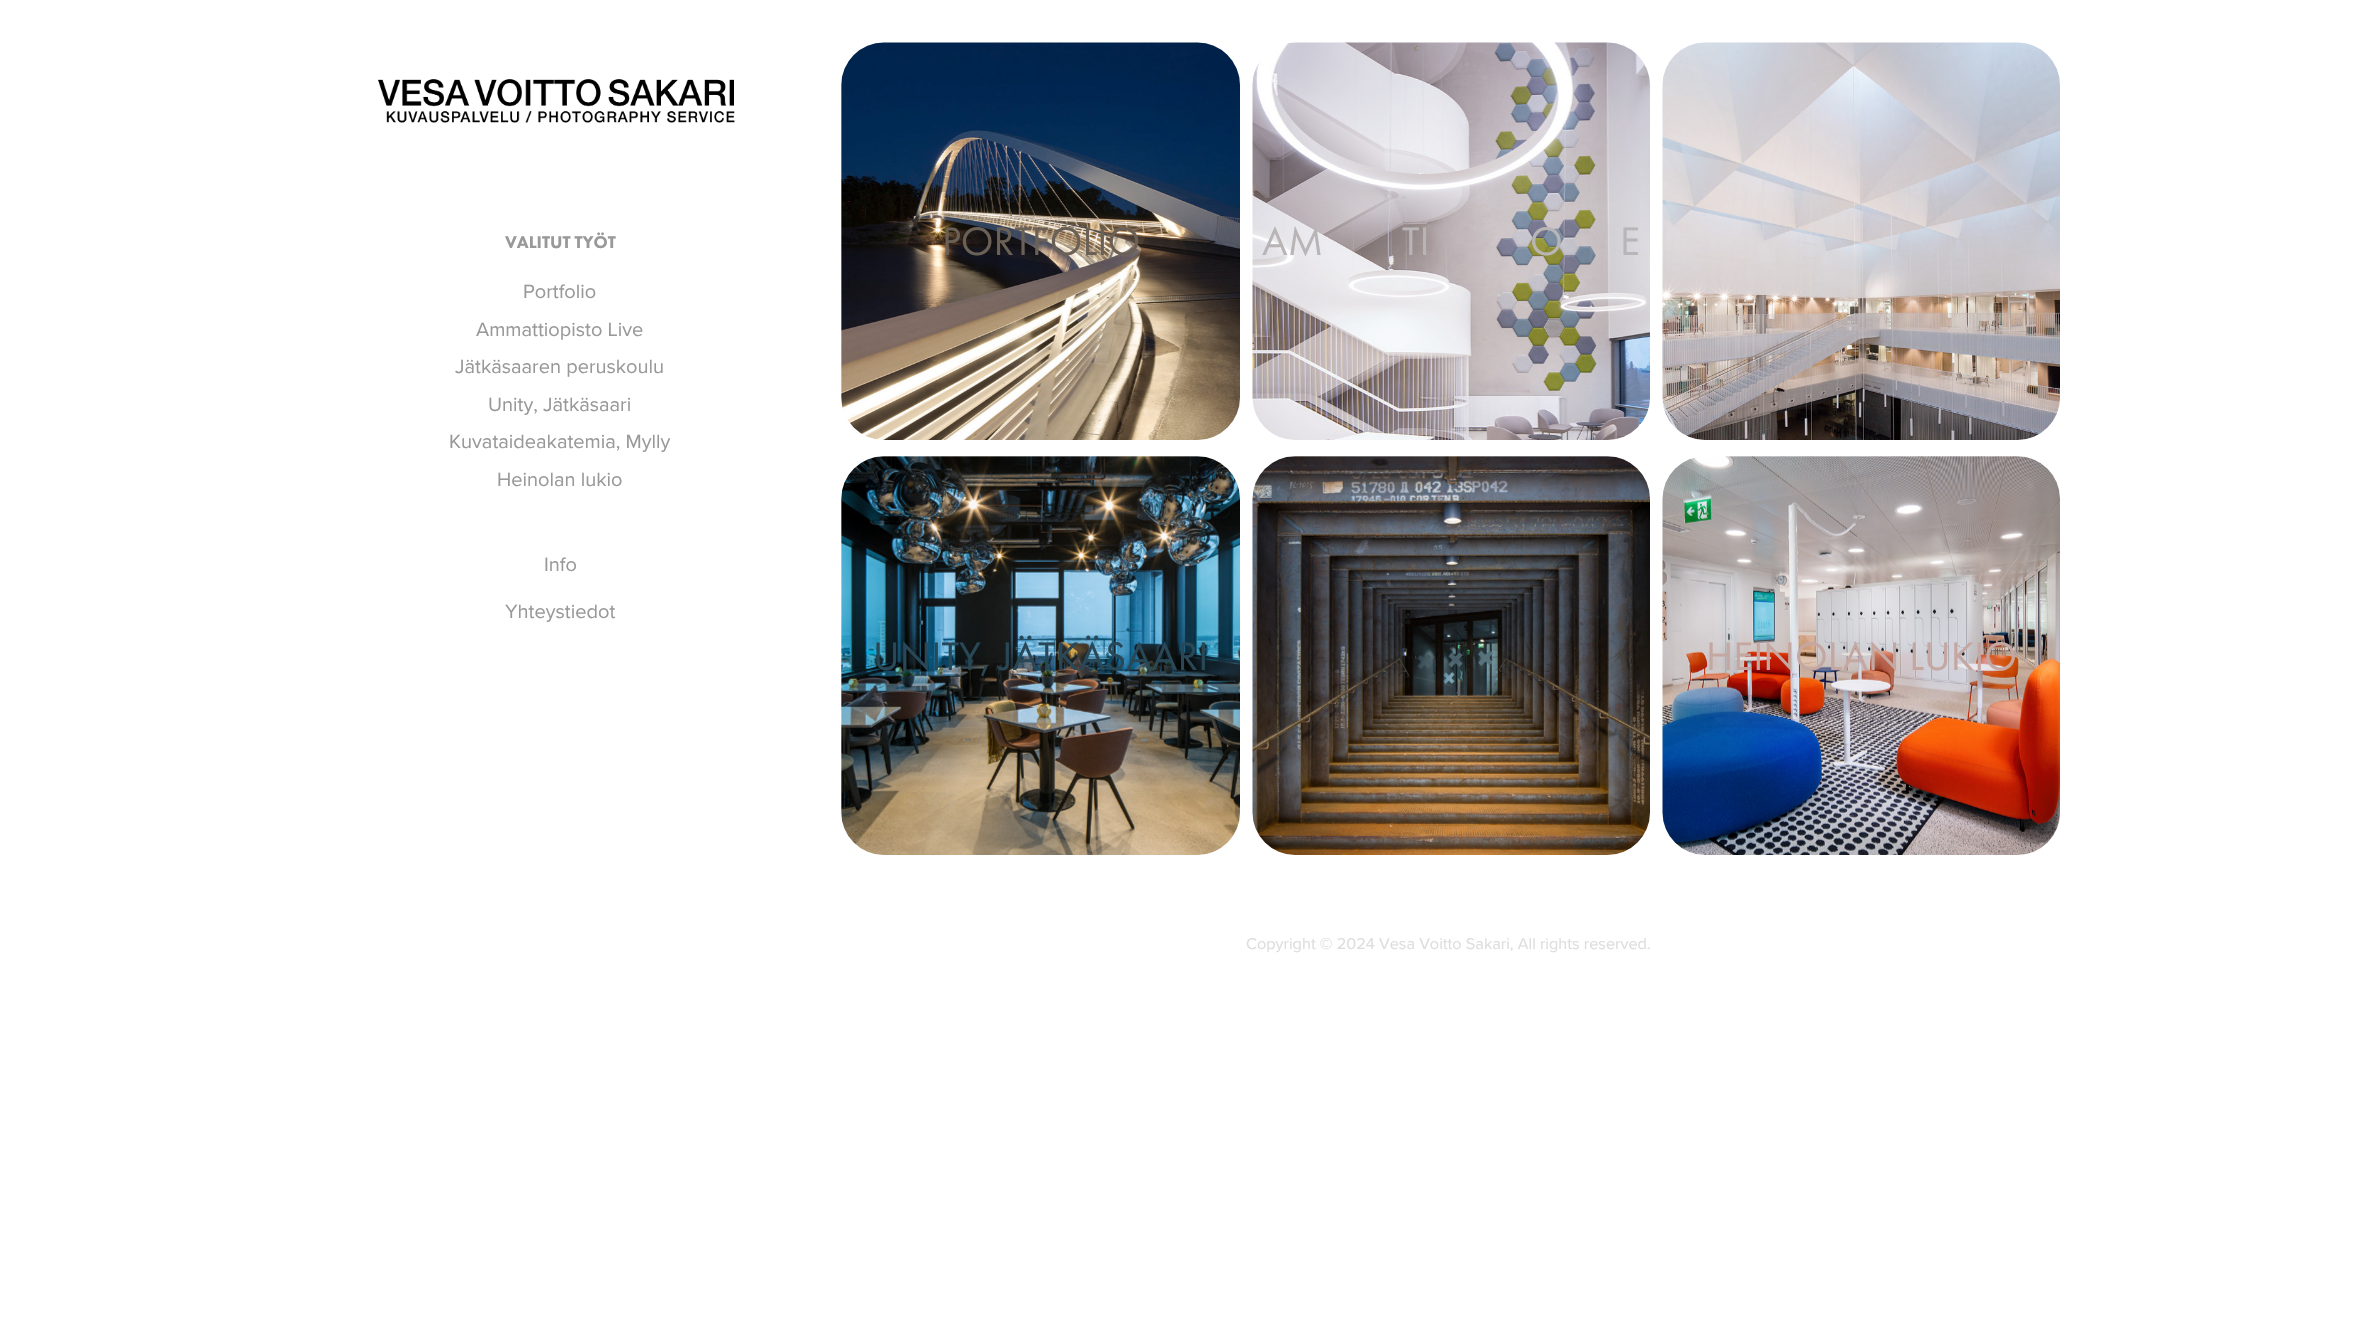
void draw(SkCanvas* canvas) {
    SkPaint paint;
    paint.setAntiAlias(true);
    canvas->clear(0xFFFFFFFF);
    canvas->drawImageRect(SkImages::DeferredFromEncodedData(SkData::MakeFromFileName("img1.png")), SkRect::MakeXYWH(378, 79, 357, 44), SkSamplingOptions());
    SkFont font1(fontMgr->matchFamilyStyle("Futura PT", SkFontStyle(900, SkFontStyle::kNormal_Width, SkFontStyle::kUpright_Slant)), 17.5f);
    font1.setSubpixel(true);
    paint.setColor(0xFF999999);
    canvas->drawString("VALITUT TYÖT", 505, 248, font1, paint);
    SkFont font2(fontMgr->matchFamilyStyle("Proxima Nova", SkFontStyle::Normal()), 20);
    font2.setSubpixel(true);
    canvas->drawString("Portfolio", 523, 298, font2, paint);
    canvas->drawString("Ammattiopisto Live", 476, 336, font2, paint);
    canvas->drawString("Jätkäsaaren peruskoulu", 455, 373, font2, paint);
    canvas->drawString("Unity, Jätkäsaari", 488, 411, font2, paint);
    canvas->drawString("Kuvataideakatemia, Mylly", 449, 448, font2, paint);
    canvas->drawString("Heinolan lukio", 497, 486, font2, paint);
    canvas->drawString("Info", 544, 571, font2, paint);
    canvas->drawString("Yhteystiedot", 505, 618, font2, paint);
    canvas->drawImageRect(SkImages::DeferredFromEncodedData(SkData::MakeFromFileName("img2.png")), SkRect::MakeXYWH(841, 42, 399, 398), SkSamplingOptions());
    SkFont font3(fontMgr->matchFamilyStyle("Futura PT", SkFontStyle::Normal()), 41.25f);
    font3.setSubpixel(true);
    paint.setColor(0xFF6A6056);
    canvas->drawString("PORTFOLIO", 942, 255, font3, paint);
    canvas->drawImageRect(SkImages::DeferredFromEncodedData(SkData::MakeFromFileName("img3.png")), SkRect::MakeXYWH(1252, 42, 398, 398), SkSamplingOptions());
    paint.setColor(0xFFB9B5B6);
    canvas->drawString("AM", 1262, 255, font3, paint);
    canvas->drawString("TI", 1402, 255, font3, paint);
    canvas->drawString("O", 1530, 255, font3, paint);
    canvas->drawString("E", 1620, 255, font3, paint);
    canvas->drawImageRect(SkImages::DeferredFromEncodedData(SkData::MakeFromFileName("img4.png")), SkRect::MakeXYWH(1662, 42, 398, 398), SkSamplingOptions());
    canvas->drawImageRect(SkImages::DeferredFromEncodedData(SkData::MakeFromFileName("img5.png")), SkRect::MakeXYWH(841, 456, 399, 399), SkSamplingOptions());
    paint.setColor(0xFF294857);
    canvas->drawString("UNITY, JÄTKÄSAARI", 873, 670, font3, paint);
    canvas->drawImageRect(SkImages::DeferredFromEncodedData(SkData::MakeFromFileName("img6.png")), SkRect::MakeXYWH(1252, 456, 398, 399), SkSamplingOptions());
    canvas->drawImageRect(SkImages::DeferredFromEncodedData(SkData::MakeFromFileName("img7.png")), SkRect::MakeXYWH(1662, 456, 398, 399), SkSamplingOptions());
    paint.setColor(0xFFC5A7A2);
    canvas->drawString("HEINOLAN LUKIO", 1706, 670, font3, paint);
    SkFont font4(fontMgr->matchFamilyStyle("Proxima Nova", SkFontStyle::Normal()), 16.25f);
    font4.setSubpixel(true);
    paint.setColor(0xFFDDDDDD);
    canvas->drawString("Copyright © 2024 Vesa Voitto Sakari, All rights reserved.", 1246, 949, font4, paint);
}
